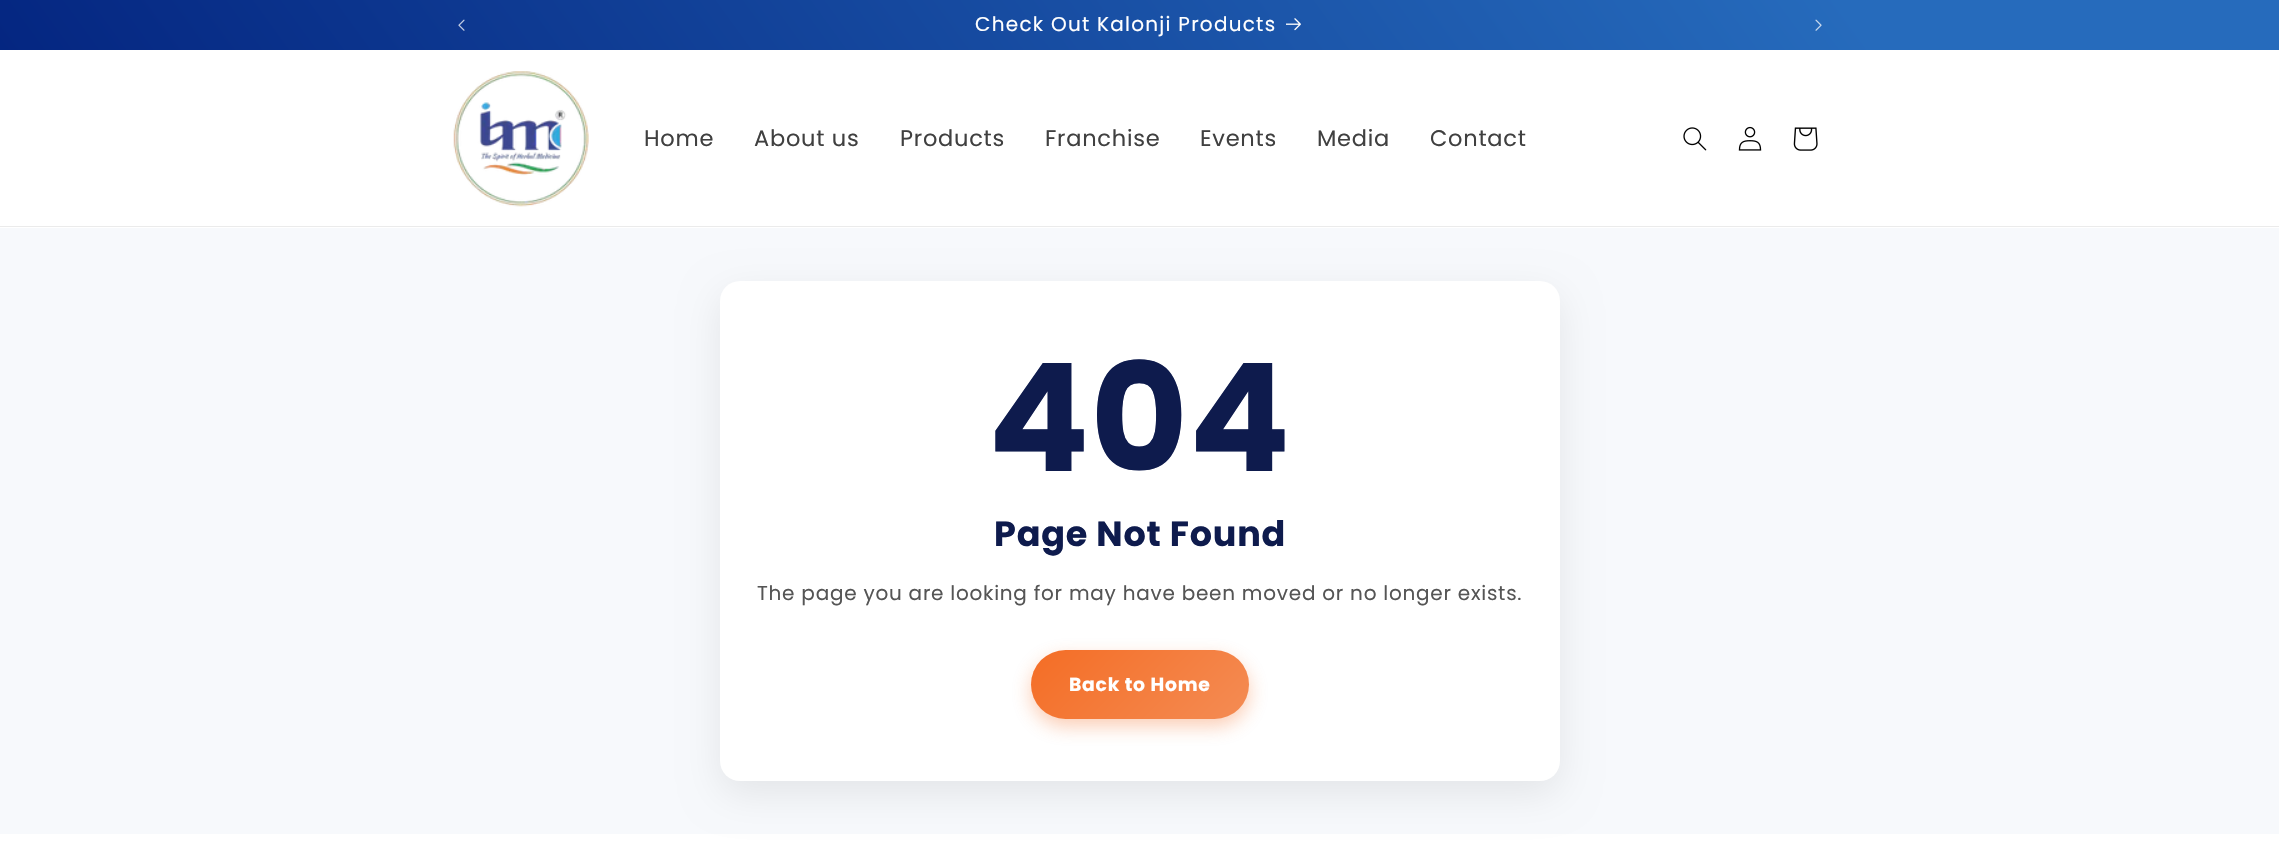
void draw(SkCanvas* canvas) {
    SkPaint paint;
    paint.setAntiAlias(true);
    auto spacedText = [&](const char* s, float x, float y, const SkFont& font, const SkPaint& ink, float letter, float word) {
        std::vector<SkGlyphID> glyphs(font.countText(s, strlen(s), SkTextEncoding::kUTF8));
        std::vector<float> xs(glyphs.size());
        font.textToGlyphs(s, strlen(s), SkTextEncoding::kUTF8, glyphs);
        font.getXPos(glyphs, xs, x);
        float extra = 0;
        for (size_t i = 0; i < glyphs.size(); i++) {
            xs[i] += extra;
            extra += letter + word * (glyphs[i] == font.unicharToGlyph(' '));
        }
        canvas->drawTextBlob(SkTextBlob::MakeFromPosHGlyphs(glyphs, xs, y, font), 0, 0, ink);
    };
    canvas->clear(0xFFFFFFFF);
    {
        const SkColor colors[] = {0xFF011F7B, 0xFF266BBC};
        const float stops[] = {0.14f, 0.85f};
        const SkPoint ends[] = {{188, 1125}, {2092, -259}};
        paint.setShader(SkGradientShader::MakeLinear(ends, colors, stops, 2, SkTileMode::kClamp));
        paint.setAlpha(255);
    }
    canvas->drawRect(SkRect::MakeXYWH(0, 0, 2279, 50), paint);
    canvas->drawImageRect(SkImages::DeferredFromEncodedData(SkData::MakeFromFileName("img1.png")), SkRect::MakeXYWH(458, 19, 7, 12), SkSamplingOptions());
    SkFont font1(fontMgr->matchFamilyStyle("Poppins", SkFontStyle::Normal()), 20);
    font1.setSubpixel(true);
    paint.setShader(nullptr);
    paint.setColor(0xFFFFFFFF);
    spacedText("Check Out Kalonji Products", 975, 31, font1, paint, 1.25f, 0);
    canvas->drawImageRect(SkImages::DeferredFromEncodedData(SkData::MakeFromFileName("img2.png")), SkRect::MakeXYWH(1286, 18, 15, 13), SkSamplingOptions());
    canvas->drawImageRect(SkImages::DeferredFromEncodedData(SkData::MakeFromFileName("img3.png")), SkRect::MakeXYWH(1815, 19, 7, 12), SkSamplingOptions());
    paint.setColor(0xFFEBEBEB);
    canvas->drawRect(SkRect::MakeXYWH(0, 226, 2279, 1), paint);
    canvas->drawImageRect(SkImages::DeferredFromEncodedData(SkData::MakeFromFileName("img4.png")), SkRect::MakeXYWH(453, 71, 136, 136), SkSamplingOptions());
    SkFont font2(fontMgr->matchFamilyStyle("Poppins", SkFontStyle::Normal()), 22.5f);
    font2.setSubpixel(true);
    paint.setColor(0xFF404040);
    spacedText("Home", 644, 146, font2, paint, 0.75f, 0);
    spacedText("About us", 754, 146, font2, paint, 0.75f, 0);
    spacedText("Products", 900, 146, font2, paint, 0.75f, 0);
    spacedText("Franchise", 1045, 146, font2, paint, 0.75f, 0);
    spacedText("Events", 1200, 146, font2, paint, 0.75f, 0);
    spacedText("Media", 1317, 146, font2, paint, 0.75f, 0);
    spacedText("Contact", 1430, 146, font2, paint, 0.75f, 0);
    canvas->drawImageRect(SkImages::DeferredFromEncodedData(SkData::MakeFromFileName("img5.png")), SkRect::MakeXYWH(1683, 127, 24, 24), SkSamplingOptions());
    canvas->drawImageRect(SkImages::DeferredFromEncodedData(SkData::MakeFromFileName("img6.png")), SkRect::MakeXYWH(1738, 126, 24, 25), SkSamplingOptions());
    canvas->drawImageRect(SkImages::DeferredFromEncodedData(SkData::MakeFromFileName("img7.png")), SkRect::MakeXYWH(1793, 127, 25, 24), SkSamplingOptions());
    paint.setColor(0xFFF7F9FC);
    canvas->drawRect(SkRect::MakeXYWH(0, 228, 2279, 606), paint);
    paint.setColor(0x14000000);
    paint.setMaskFilter(SkMaskFilter::MakeBlur(kNormal_SkBlurStyle, 19));
    canvas->drawRoundRect(SkRect::MakeXYWH(720, 294, 840, 500), 20, 20, paint);
    paint.setMaskFilter(nullptr);
    paint.setColor(0xFFFFFFFF);
    canvas->drawRoundRect(SkRect::MakeXYWH(720, 281, 840, 500), 20, 20, paint);
    SkFont font3(fontMgr->matchFamilyStyle("Poppins", SkFontStyle::Bold()), 150);
    font3.setSubpixel(true);
    paint.setColor(0xFF0E1B4D);
    spacedText("404", 988, 471, font3, paint, 0.75f, 0);
    SkFont font4(fontMgr->matchFamilyStyle("Poppins", SkFontStyle::Bold()), 35);
    font4.setSubpixel(true);
    spacedText("Page Not Found", 994, 546, font4, paint, 0.8f, 0);
    paint.setColor(0xFF555555);
    spacedText("The page you are looking for may have been moved or no longer exists.", 757, 600, font1, paint, 0.75f, 0);
    paint.setColor(0x59F46D25);
    paint.setMaskFilter(SkMaskFilter::MakeBlur(kNormal_SkBlurStyle, 9.5f));
    canvas->drawRoundRect(SkRect::MakeXYWH(1031, 658, 218, 68), 34, 34, paint);
    paint.setMaskFilter(nullptr);
    {
        const SkColor colors[] = {0xFFF46D25, 0xFFF48C54};
        const float stops[] = {0, 1};
        const SkPoint ends[] = {{1068, 613}, {1212, 756}};
        paint.setShader(SkGradientShader::MakeLinear(ends, colors, stops, 2, SkTileMode::kClamp));
        paint.setAlpha(255);
    }
    canvas->drawRoundRect(SkRect::MakeXYWH(1031, 650, 218, 69), 34.5f, 34.5f, paint);
    SkFont font5(fontMgr->matchFamilyStyle("Poppins", SkFontStyle::Bold()), 18.75f);
    font5.setSubpixel(true);
    paint.setShader(nullptr);
    paint.setColor(0xFFFFFFFF);
    spacedText("Back to Home", 1069, 691, font5, paint, 0.75f, 0);
}
